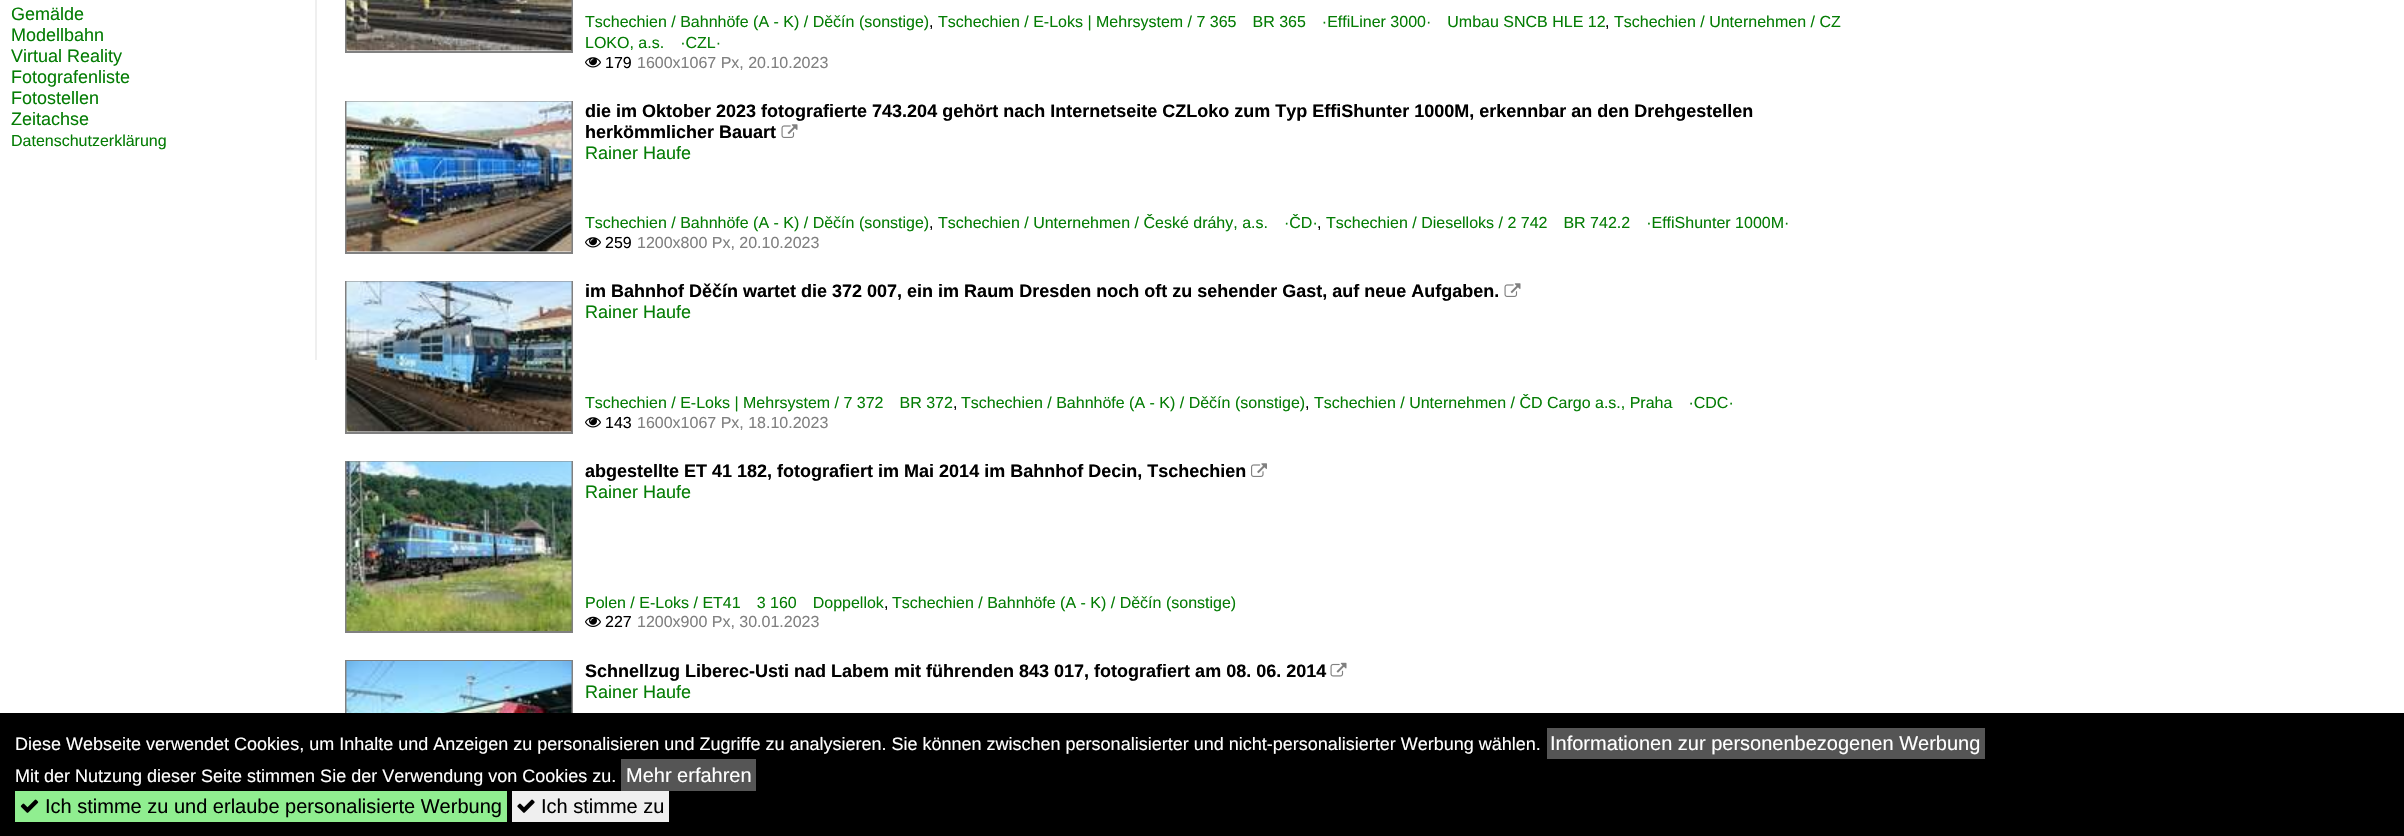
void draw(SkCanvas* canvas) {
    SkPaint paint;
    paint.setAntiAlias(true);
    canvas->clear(0xFFFFFFFF);
    paint.setColor(0xFFEFEFEF);
    canvas->drawRect(SkRect::MakeXYWH(315, 0, 2, 360), paint);
    SkFont font1(fontMgr->matchFamilyStyle("Liberation Sans", SkFontStyle::Normal()), 18);
    font1.setSubpixel(true);
    paint.setColor(0xFF057D05);
    canvas->drawString("Gemälde", 11, 20, font1, paint);
    canvas->drawString("Modellbahn", 11, 41, font1, paint);
    canvas->drawString("Virtual Reality", 11, 62, font1, paint);
    canvas->drawString("Fotografenliste", 11, 83, font1, paint);
    canvas->drawString("Fotostellen", 11, 104, font1, paint);
    canvas->drawString("Zeitachse", 11, 125, font1, paint);
    SkFont font2(fontMgr->matchFamilyStyle("Liberation Sans", SkFontStyle::Normal()), 16);
    font2.setSubpixel(true);
    canvas->drawString("Datenschutzerklärung", 11, 146, font2, paint);
    paint.setStyle(SkPaint::kStroke_Style);
    paint.setStrokeWidth(2);
    paint.setColor(0xFF808080);
    canvas->drawRect(SkRect::MakeXYWH(346, -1, 226, 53), paint);
    canvas->drawImageRect(SkImages::DeferredFromEncodedData(SkData::MakeFromFileName("img1.png")), SkRect::MakeXYWH(346, 0, 226, 51), SkSamplingOptions());
    paint.setStyle(SkPaint::kFill_Style);
    paint.setColor(0xFF057D05);
    canvas->drawString("Tschechien / Bahnhöfe (A - K) / Děčín (sonstige)", 585, 27, font2, paint);
    paint.setColor(0xFF000000);
    canvas->drawString(",", 929, 27, font2, paint);
    paint.setColor(0xFF057D05);
    canvas->drawString("Tschechien / E-Loks | Mehrsystem / 7 365 BR 365 ·EffiLiner 3000· Umbau SNCB HLE 12", 938, 27, font2, paint);
    paint.setColor(0xFF000000);
    canvas->drawString(",", 1605, 27, font2, paint);
    paint.setColor(0xFF057D05);
    canvas->drawString("Tschechien / Unternehmen / CZ", 1614, 27, font2, paint);
    canvas->drawString("LOKO, a.s. ·CZL·", 585, 48, font2, paint);
    canvas->drawImageRect(SkImages::DeferredFromEncodedData(SkData::MakeFromFileName("img2.png")), SkRect::MakeXYWH(585, 57, 16, 11), SkSamplingOptions());
    paint.setColor(0xFF000000);
    canvas->drawString("179", 605, 68, font2, paint);
    paint.setColor(0xFF808080);
    canvas->drawString("1600x1067 Px, 20.10.2023", 637, 68, font2, paint);
    paint.setStyle(SkPaint::kStroke_Style);
    canvas->drawRect(SkRect::MakeXYWH(346, 102, 226, 151), paint);
    canvas->drawImageRect(SkImages::DeferredFromEncodedData(SkData::MakeFromFileName("img3.png")), SkRect::MakeXYWH(346, 101, 226, 151), SkSamplingOptions());
    SkFont font3(fontMgr->matchFamilyStyle("Liberation Sans", SkFontStyle::Bold()), 18);
    font3.setSubpixel(true);
    paint.setStyle(SkPaint::kFill_Style);
    paint.setColor(0xFF000000);
    canvas->drawString("die im Oktober 2023 fotografierte 743.204 gehört nach Internetseite CZLoko zum Typ EffiShunter 1000M, erkennbar an den Drehgestellen", 585, 117, font3, paint);
    canvas->drawString("herkömmlicher Bauart", 585, 138, font3, paint);
    canvas->drawImageRect(SkImages::DeferredFromEncodedData(SkData::MakeFromFileName("img4.png")), SkRect::MakeXYWH(781, 124, 17, 14), SkSamplingOptions());
    paint.setColor(0xFF057D05);
    canvas->drawString("Rainer Haufe", 585, 159, font1, paint);
    canvas->drawString("Tschechien / Bahnhöfe (A - K) / Děčín (sonstige)", 585, 228, font2, paint);
    paint.setColor(0xFF000000);
    canvas->drawString(",", 929, 228, font2, paint);
    paint.setColor(0xFF057D05);
    canvas->drawString("Tschechien / Unternehmen / České dráhy, a.s. ·ČD·", 938, 228, font2, paint);
    paint.setColor(0xFF000000);
    canvas->drawString(",", 1317, 228, font2, paint);
    paint.setColor(0xFF057D05);
    canvas->drawString("Tschechien / Dieselloks / 2 742 BR 742.2 ·EffiShunter 1000M·", 1326, 228, font2, paint);
    canvas->drawImageRect(SkImages::DeferredFromEncodedData(SkData::MakeFromFileName("img2.png")), SkRect::MakeXYWH(585, 237, 16, 11), SkSamplingOptions());
    paint.setColor(0xFF000000);
    canvas->drawString("259", 605, 248, font2, paint);
    paint.setColor(0xFF808080);
    canvas->drawString("1200x800 Px, 20.10.2023", 637, 248, font2, paint);
    paint.setStyle(SkPaint::kStroke_Style);
    canvas->drawRect(SkRect::MakeXYWH(346, 282, 226, 151), paint);
    canvas->drawImageRect(SkImages::DeferredFromEncodedData(SkData::MakeFromFileName("img5.png")), SkRect::MakeXYWH(346, 281, 226, 151), SkSamplingOptions());
    paint.setStyle(SkPaint::kFill_Style);
    paint.setColor(0xFF000000);
    canvas->drawString("im Bahnhof Děčín wartet die 372 007, ein im Raum Dresden noch oft zu sehender Gast, auf neue Aufgaben.", 585, 297, font3, paint);
    canvas->drawImageRect(SkImages::DeferredFromEncodedData(SkData::MakeFromFileName("img4.png")), SkRect::MakeXYWH(1504, 283, 17, 14), SkSamplingOptions());
    paint.setColor(0xFF057D05);
    canvas->drawString("Rainer Haufe", 585, 318, font1, paint);
    canvas->drawString("Tschechien / E-Loks | Mehrsystem / 7 372 BR 372", 585, 408, font2, paint);
    paint.setColor(0xFF000000);
    canvas->drawString(",", 953, 408, font2, paint);
    paint.setColor(0xFF057D05);
    canvas->drawString("Tschechien / Bahnhöfe (A - K) / Děčín (sonstige)", 961, 408, font2, paint);
    paint.setColor(0xFF000000);
    canvas->drawString(",", 1305, 408, font2, paint);
    paint.setColor(0xFF057D05);
    canvas->drawString("Tschechien / Unternehmen / ČD Cargo a.s., Praha ·CDC·", 1314, 408, font2, paint);
    canvas->drawImageRect(SkImages::DeferredFromEncodedData(SkData::MakeFromFileName("img2.png")), SkRect::MakeXYWH(585, 417, 16, 11), SkSamplingOptions());
    paint.setColor(0xFF000000);
    canvas->drawString("143", 605, 428, font2, paint);
    paint.setColor(0xFF808080);
    canvas->drawString("1600x1067 Px, 18.10.2023", 637, 428, font2, paint);
    paint.setStyle(SkPaint::kStroke_Style);
    canvas->drawRect(SkRect::MakeXYWH(346, 462, 226, 170), paint);
    canvas->drawImageRect(SkImages::DeferredFromEncodedData(SkData::MakeFromFileName("img6.png")), SkRect::MakeXYWH(346, 461, 226, 170), SkSamplingOptions());
    paint.setStyle(SkPaint::kFill_Style);
    paint.setColor(0xFF000000);
    canvas->drawString("abgestellte ET 41 182, fotografiert im Mai 2014 im Bahnhof Decin, Tschechien", 585, 477, font3, paint);
    canvas->drawImageRect(SkImages::DeferredFromEncodedData(SkData::MakeFromFileName("img7.png")), SkRect::MakeXYWH(1251, 463, 16, 14), SkSamplingOptions());
    paint.setColor(0xFF057D05);
    canvas->drawString("Rainer Haufe", 585, 498, font1, paint);
    canvas->drawString("Polen / E-Loks / ET41 3 160 Doppellok", 585, 608, font2, paint);
    paint.setColor(0xFF000000);
    canvas->drawString(",", 884, 608, font2, paint);
    paint.setColor(0xFF057D05);
    canvas->drawString("Tschechien / Bahnhöfe (A - K) / Děčín (sonstige)", 892, 608, font2, paint);
    canvas->drawImageRect(SkImages::DeferredFromEncodedData(SkData::MakeFromFileName("img8.png")), SkRect::MakeXYWH(585, 616, 16, 11), SkSamplingOptions());
    paint.setColor(0xFF000000);
    canvas->drawString("227", 605, 627, font2, paint);
    paint.setColor(0xFF808080);
    canvas->drawString("1200x900 Px, 30.01.2023", 637, 627, font2, paint);
    paint.setStyle(SkPaint::kStroke_Style);
    canvas->drawRect(SkRect::MakeXYWH(346, 661, 226, 171), paint);
    canvas->drawImageRect(SkImages::DeferredFromEncodedData(SkData::MakeFromFileName("img9.png")), SkRect::MakeXYWH(346, 661, 226, 52), SkSamplingOptions());
    paint.setStyle(SkPaint::kFill_Style);
    paint.setColor(0xFF000000);
    canvas->drawString("Schnellzug Liberec-Usti nad Labem mit führenden 843 017, fotografiert am 08. 06. 2014", 585, 677, font3, paint);
    canvas->drawImageRect(SkImages::DeferredFromEncodedData(SkData::MakeFromFileName("img10.png")), SkRect::MakeXYWH(1330, 662, 17, 15), SkSamplingOptions());
    paint.setColor(0xFF057D05);
    canvas->drawString("Rainer Haufe", 585, 698, font1, paint);
    paint.setColor(0xFF000000);
    canvas->drawRect(SkRect::MakeXYWH(0, 713, 2404, 123), paint);
    paint.setColor(0xFFFFFFFF);
    canvas->drawString("Diese Webseite verwendet Cookies, um Inhalte und Anzeigen zu personalisieren und Zugriffe zu analysieren. Sie können zwischen personalisierter und nicht-personalisierter Werbung wählen.", 15, 750, font1, paint);
    paint.setColor(0xFF555555);
    canvas->drawRect(SkRect::MakeXYWH(1547, 728, 438, 31), paint);
    SkFont font4(fontMgr->matchFamilyStyle("Liberation Sans", SkFontStyle::Normal()), 20);
    font4.setSubpixel(true);
    paint.setColor(0xFFFFFFFF);
    canvas->drawString("Informationen zur personenbezogenen Werbung", 1550, 750, font4, paint);
    canvas->drawString("Mit der Nutzung dieser Seite stimmen Sie der Verwendung von Cookies zu.", 15, 782, font1, paint);
    paint.setColor(0xFF555555);
    canvas->drawRect(SkRect::MakeXYWH(621, 759, 135, 32), paint);
    paint.setColor(0xFFFFFFFF);
    canvas->drawString("Mehr erfahren", 626, 782, font4, paint);
    paint.setColor(0xFF90EE90);
    canvas->drawRect(SkRect::MakeXYWH(15, 791, 492, 31), paint);
    canvas->drawImageRect(SkImages::DeferredFromEncodedData(SkData::MakeFromFileName("img11.png")), SkRect::MakeXYWH(20, 799, 19, 14), SkSamplingOptions());
    paint.setColor(0xFF000000);
    canvas->drawString("Ich stimme zu und erlaube personalisierte Werbung", 45, 813, font4, paint);
    paint.setColor(0xFFEFEFEF);
    canvas->drawRect(SkRect::MakeXYWH(512, 791, 157, 31), paint);
    canvas->drawImageRect(SkImages::DeferredFromEncodedData(SkData::MakeFromFileName("img12.png")), SkRect::MakeXYWH(517, 799, 18, 14), SkSamplingOptions());
    paint.setColor(0xFF000000);
    canvas->drawString("Ich stimme zu", 541, 813, font4, paint);
}
